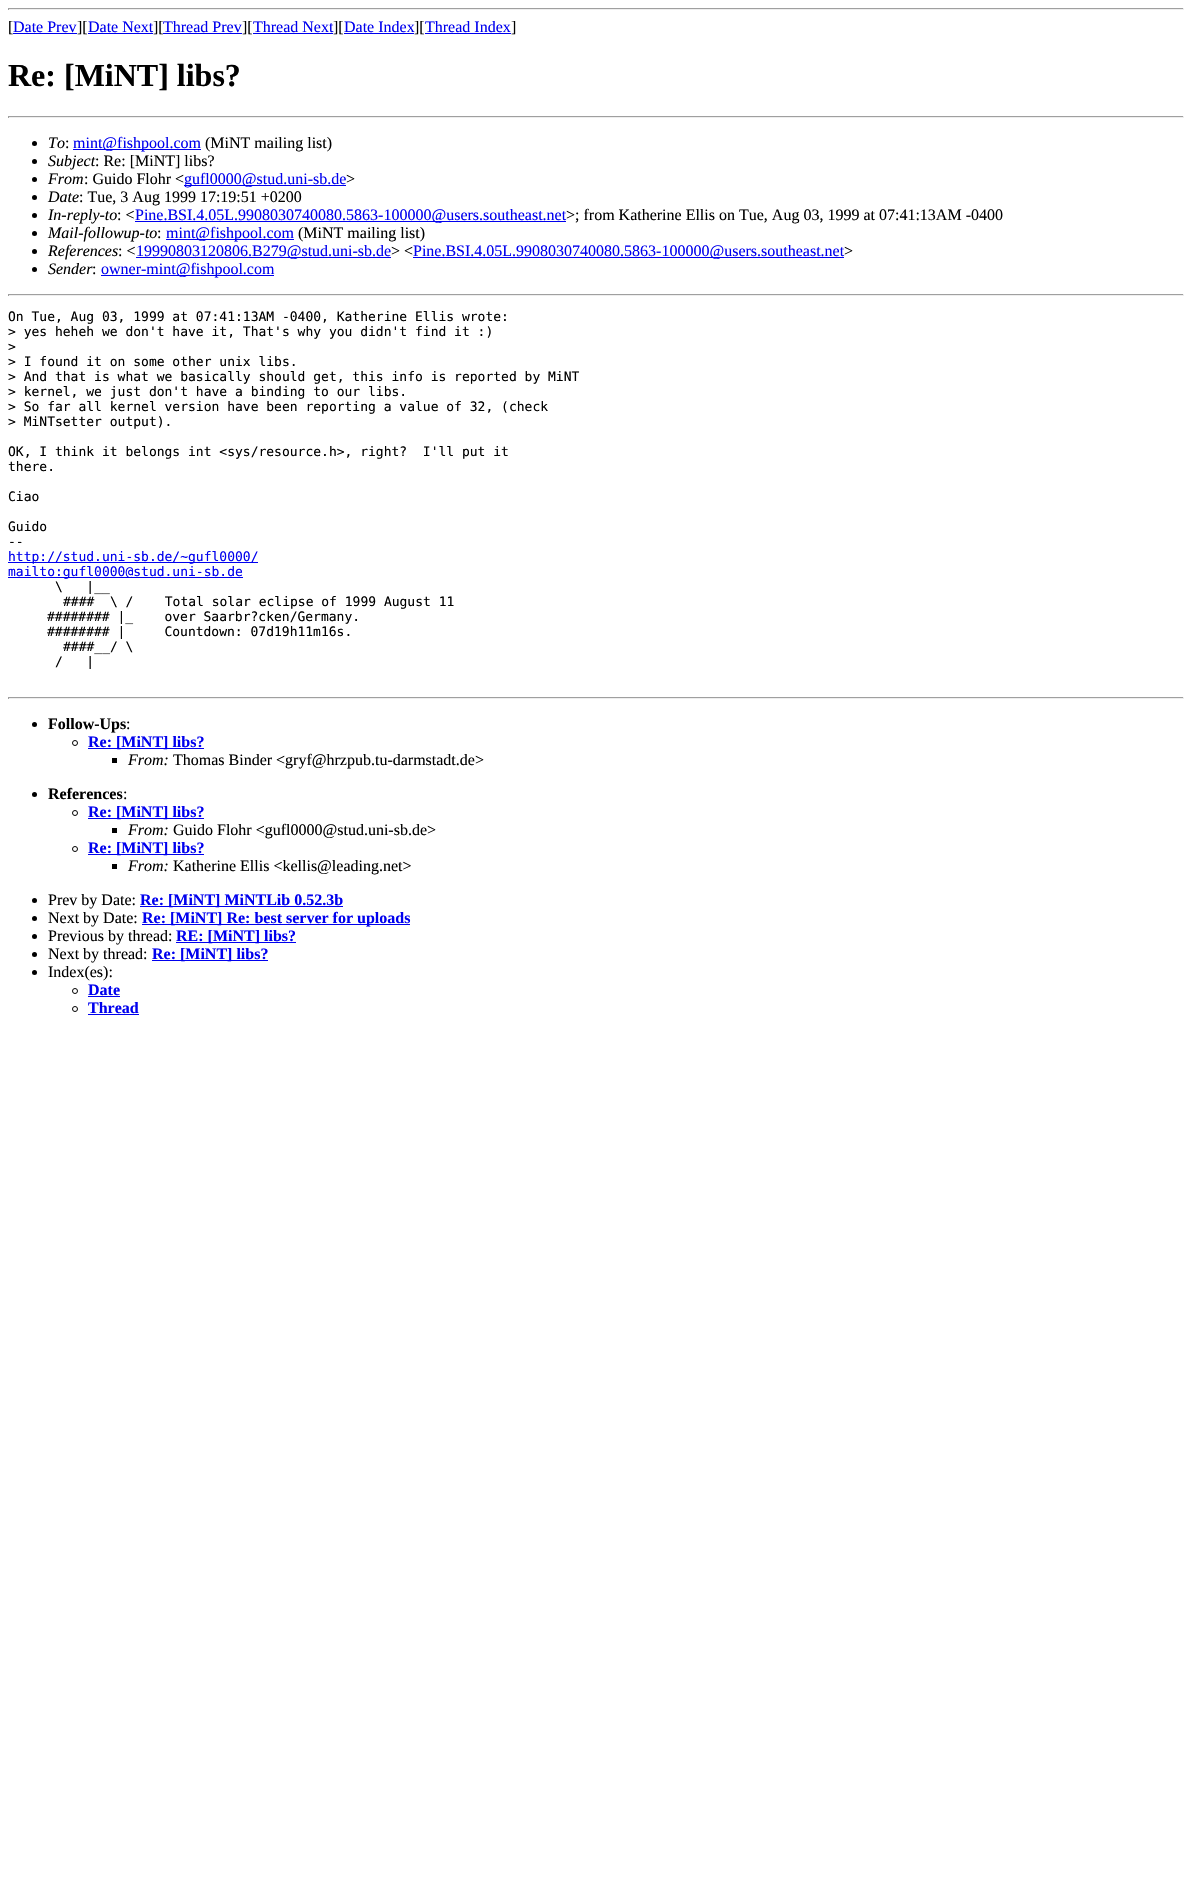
void draw(SkCanvas* canvas) {
    SkPaint paint;
    paint.setAntiAlias(true);
    canvas->clear(0xFFFFFFFF);
    paint.setColor(0xFF9F9F9F);
    canvas->drawRect(SkRect::MakeXYWH(8, 8, 1176, 1), paint);
    paint.setColor(0xFFEEEEEE);
    canvas->drawRect(SkRect::MakeXYWH(1183, 8, 1, 2), paint);
    canvas->drawRect(SkRect::MakeXYWH(8, 9, 1176, 1), paint);
    paint.setColor(0xFF9F9F9F);
    canvas->drawRect(SkRect::MakeXYWH(8, 8, 1, 2), paint);
    SkFont font1(fontMgr->matchFamilyStyle("Liberation Serif", SkFontStyle::Normal()), 16);
    font1.setSubpixel(true);
    paint.setColor(0xFF000000);
    canvas->drawString("[", 8, 32, font1, paint);
    paint.setColor(0xFF0000EE);
    canvas->drawString("Date Prev", 13, 32, font1, paint);
    canvas->drawRect(SkRect::MakeXYWH(13, 33, 64, 1), paint);
    paint.setColor(0xFF000000);
    canvas->drawString("][", 77, 32, font1, paint);
    paint.setColor(0xFF0000EE);
    canvas->drawString("Date Next", 88, 32, font1, paint);
    canvas->drawRect(SkRect::MakeXYWH(88, 33, 65, 1), paint);
    paint.setColor(0xFF000000);
    canvas->drawString("][", 153, 32, font1, paint);
    paint.setColor(0xFF0000EE);
    canvas->drawString("Thread Prev", 163, 32, font1, paint);
    canvas->drawRect(SkRect::MakeXYWH(163, 33, 79, 1), paint);
    paint.setColor(0xFF000000);
    canvas->drawString("][", 242, 32, font1, paint);
    paint.setColor(0xFF0000EE);
    canvas->drawString("Thread Next", 253, 32, font1, paint);
    canvas->drawRect(SkRect::MakeXYWH(253, 33, 80, 1), paint);
    paint.setColor(0xFF000000);
    canvas->drawString("][", 333, 32, font1, paint);
    paint.setColor(0xFF0000EE);
    canvas->drawString("Date Index", 344, 32, font1, paint);
    canvas->drawRect(SkRect::MakeXYWH(344, 33, 70, 1), paint);
    paint.setColor(0xFF000000);
    canvas->drawString("][", 414, 32, font1, paint);
    paint.setColor(0xFF0000EE);
    canvas->drawString("Thread Index", 425, 32, font1, paint);
    canvas->drawRect(SkRect::MakeXYWH(425, 33, 86, 1), paint);
    paint.setColor(0xFF000000);
    canvas->drawString("]", 511, 32, font1, paint);
    SkFont font2(fontMgr->matchFamilyStyle("Liberation Serif", SkFontStyle::Bold()), 32);
    font2.setSubpixel(true);
    canvas->drawString("Re: [MiNT] libs?", 8, 86, font2, paint);
    paint.setColor(0xFF9F9F9F);
    canvas->drawRect(SkRect::MakeXYWH(8, 116, 1176, 1), paint);
    paint.setColor(0xFFEEEEEE);
    canvas->drawRect(SkRect::MakeXYWH(1183, 116, 1, 2), paint);
    canvas->drawRect(SkRect::MakeXYWH(8, 117, 1176, 1), paint);
    paint.setColor(0xFF9F9F9F);
    canvas->drawRect(SkRect::MakeXYWH(8, 116, 1, 2), paint);
    paint.setColor(0xFF000000);
    canvas->drawCircle(34.5f, 143.5f, 2.5f, paint);
    SkFont font3(fontMgr->matchFamilyStyle("Liberation Serif", SkFontStyle::Italic()), 16);
    font3.setSubpixel(true);
    canvas->drawString("To", 48, 148, font3, paint);
    canvas->drawString(":", 65, 148, font1, paint);
    paint.setColor(0xFF0000EE);
    canvas->drawRect(SkRect::MakeXYWH(73, 149, 128, 1), paint);
    canvas->drawString("mint@fishpool.com", 73, 148, font1, paint);
    paint.setColor(0xFF000000);
    canvas->drawString("(MiNT mailing list)", 205, 148, font1, paint);
    canvas->drawCircle(34.5f, 161.5f, 2.5f, paint);
    canvas->drawString("Subject", 48, 166, font3, paint);
    canvas->drawString(": Re: [MiNT] libs?", 95, 166, font1, paint);
    canvas->drawCircle(34.5f, 179.5f, 2.5f, paint);
    canvas->drawString("From", 48, 184, font3, paint);
    canvas->drawString(": Guido Flohr <", 84, 184, font1, paint);
    paint.setColor(0xFF0000EE);
    canvas->drawRect(SkRect::MakeXYWH(184, 185, 162, 1), paint);
    canvas->drawString("gufl0000@stud.uni-sb.de", 184, 184, font1, paint);
    paint.setColor(0xFF000000);
    canvas->drawString(">", 346, 184, font1, paint);
    canvas->drawCircle(34.5f, 197.5f, 2.5f, paint);
    canvas->drawString("Date", 48, 202, font3, paint);
    canvas->drawString(": Tue, 3 Aug 1999 17:19:51 +0200", 79, 202, font1, paint);
    canvas->drawCircle(34.5f, 215.5f, 2.5f, paint);
    canvas->drawString("In-reply-to", 48, 220, font3, paint);
    canvas->drawString(": <", 117, 220, font1, paint);
    paint.setColor(0xFF0000EE);
    canvas->drawRect(SkRect::MakeXYWH(135, 221, 431, 1), paint);
    canvas->drawString("Pine.BSI.4.05L.9908030740080.5863-100000@users.southeast.net", 135, 220, font1, paint);
    paint.setColor(0xFF000000);
    canvas->drawString(">; from Katherine Ellis on Tue, Aug 03, 1999 at 07:41:13AM -0400", 566, 220, font1, paint);
    canvas->drawCircle(34.5f, 233.5f, 2.5f, paint);
    canvas->drawString("Mail-followup-to", 48, 238, font3, paint);
    canvas->drawString(":", 157, 238, font1, paint);
    paint.setColor(0xFF0000EE);
    canvas->drawRect(SkRect::MakeXYWH(166, 239, 128, 1), paint);
    canvas->drawString("mint@fishpool.com", 166, 238, font1, paint);
    paint.setColor(0xFF000000);
    canvas->drawString("(MiNT mailing list)", 298, 238, font1, paint);
    canvas->drawCircle(34.5f, 251.5f, 2.5f, paint);
    canvas->drawString("References", 48, 256, font3, paint);
    canvas->drawString(": <", 118, 256, font1, paint);
    paint.setColor(0xFF0000EE);
    canvas->drawRect(SkRect::MakeXYWH(136, 257, 255, 1), paint);
    canvas->drawString("19990803120806.B279@stud.uni-sb.de", 136, 256, font1, paint);
    paint.setColor(0xFF000000);
    canvas->drawString("> <", 391, 256, font1, paint);
    paint.setColor(0xFF0000EE);
    canvas->drawRect(SkRect::MakeXYWH(413, 257, 431, 1), paint);
    canvas->drawString("Pine.BSI.4.05L.9908030740080.5863-100000@users.southeast.net", 413, 256, font1, paint);
    paint.setColor(0xFF000000);
    canvas->drawString(">", 844, 256, font1, paint);
    canvas->drawCircle(34.5f, 269.5f, 2.5f, paint);
    canvas->drawString("Sender", 48, 274, font3, paint);
    canvas->drawString(":", 92, 274, font1, paint);
    paint.setColor(0xFF0000EE);
    canvas->drawRect(SkRect::MakeXYWH(101, 275, 173, 1), paint);
    canvas->drawString("owner-mint@fishpool.com", 101, 274, font1, paint);
    paint.setColor(0xFF9F9F9F);
    canvas->drawRect(SkRect::MakeXYWH(8, 294, 1176, 1), paint);
    paint.setColor(0xFFEEEEEE);
    canvas->drawRect(SkRect::MakeXYWH(1183, 294, 1, 2), paint);
    canvas->drawRect(SkRect::MakeXYWH(8, 295, 1176, 1), paint);
    paint.setColor(0xFF9F9F9F);
    canvas->drawRect(SkRect::MakeXYWH(8, 294, 1, 2), paint);
    SkFont font4(fontMgr->matchFamilyStyle("DejaVu Sans Mono", SkFontStyle::Normal()), 13);
    font4.setSubpixel(true);
    paint.setColor(0xFF000000);
    canvas->drawString("On Tue, Aug 03, 1999 at 07:41:13AM -0400, Katherine Ellis wrote:", 8, 321, font4, paint);
    canvas->drawString("> yes heheh we don't have it, That's why you didn't find it :)", 8, 336, font4, paint);
    canvas->drawString(">", 8, 351, font4, paint);
    canvas->drawString("> I found it on some other unix libs.", 8, 366, font4, paint);
    canvas->drawString("> And that is what we basically should get, this info is reported by MiNT", 8, 381, font4, paint);
    canvas->drawString("> kernel, we just don't have a binding to our libs.", 8, 396, font4, paint);
    canvas->drawString("> So far all kernel version have been reporting a value of 32, (check", 8, 411, font4, paint);
    canvas->drawString("> MiNTsetter output).", 8, 426, font4, paint);
    canvas->drawString("OK, I think it belongs int <sys/resource.h>, right?  I'll put it", 8, 456, font4, paint);
    canvas->drawString("there.", 8, 471, font4, paint);
    canvas->drawString("Ciao", 8, 501, font4, paint);
    canvas->drawString("Guido", 8, 531, font4, paint);
    canvas->drawString("--", 8, 546, font4, paint);
    paint.setColor(0xFF0000EE);
    canvas->drawRect(SkRect::MakeXYWH(8, 562, 250, 1), paint);
    canvas->drawString("http://stud.uni-sb.de/~gufl0000/", 8, 561, font4, paint);
    canvas->drawRect(SkRect::MakeXYWH(8, 577, 235, 1), paint);
    canvas->drawString("mailto:gufl0000@stud.uni-sb.de", 8, 576, font4, paint);
    paint.setColor(0xFF000000);
    canvas->drawString("\\   |__", 55, 591, font4, paint);
    canvas->drawString("####  \\ /    Total solar eclipse of 1999 August 11", 63, 606, font4, paint);
    canvas->drawString("######## |_    over Saarbr?cken/Germany.", 47, 621, font4, paint);
    canvas->drawString("######## |     Countdown: 07d19h11m16s.", 47, 636, font4, paint);
    canvas->drawString("####__/ \\", 63, 651, font4, paint);
    canvas->drawString("/   |", 55, 666, font4, paint);
    paint.setColor(0xFF9F9F9F);
    canvas->drawRect(SkRect::MakeXYWH(8, 697, 1176, 1), paint);
    paint.setColor(0xFFEEEEEE);
    canvas->drawRect(SkRect::MakeXYWH(1183, 697, 1, 2), paint);
    canvas->drawRect(SkRect::MakeXYWH(8, 698, 1176, 1), paint);
    paint.setColor(0xFF9F9F9F);
    canvas->drawRect(SkRect::MakeXYWH(8, 697, 1, 2), paint);
    paint.setColor(0xFF000000);
    canvas->drawCircle(34.5f, 724.5f, 2.5f, paint);
    SkFont font5(fontMgr->matchFamilyStyle("Liberation Serif", SkFontStyle::Bold()), 16);
    font5.setSubpixel(true);
    canvas->drawString("Follow-Ups", 48, 729, font5, paint);
    canvas->drawString(":", 126, 729, font1, paint);
    paint.setStyle(SkPaint::kStroke_Style);
    paint.setStrokeWidth(1);
    canvas->drawCircle(75, 743, 2.5f, paint);
    paint.setStyle(SkPaint::kFill_Style);
    paint.setColor(0xFF0000EE);
    canvas->drawRect(SkRect::MakeXYWH(88, 748, 116, 1), paint);
    canvas->drawString("Re: [MiNT] libs?", 88, 747, font5, paint);
    paint.setColor(0xFF000000);
    canvas->drawRect(SkRect::MakeXYWH(112, 758, 5, 5), paint);
    canvas->drawString("From:", 128, 765, font3, paint);
    canvas->drawString("Thomas Binder <gryf@hrzpub.tu-darmstadt.de>", 173, 765, font1, paint);
    canvas->drawCircle(34.5f, 794.5f, 2.5f, paint);
    canvas->drawString("References", 48, 799, font5, paint);
    canvas->drawString(":", 123, 799, font1, paint);
    paint.setStyle(SkPaint::kStroke_Style);
    canvas->drawCircle(75, 813, 2.5f, paint);
    paint.setStyle(SkPaint::kFill_Style);
    paint.setColor(0xFF0000EE);
    canvas->drawRect(SkRect::MakeXYWH(88, 818, 116, 1), paint);
    canvas->drawString("Re: [MiNT] libs?", 88, 817, font5, paint);
    paint.setColor(0xFF000000);
    canvas->drawRect(SkRect::MakeXYWH(112, 828, 5, 5), paint);
    canvas->drawString("From:", 128, 835, font3, paint);
    canvas->drawString("Guido Flohr <gufl0000@stud.uni-sb.de>", 173, 835, font1, paint);
    paint.setStyle(SkPaint::kStroke_Style);
    canvas->drawCircle(75, 849, 2.5f, paint);
    paint.setStyle(SkPaint::kFill_Style);
    paint.setColor(0xFF0000EE);
    canvas->drawRect(SkRect::MakeXYWH(88, 854, 116, 1), paint);
    canvas->drawString("Re: [MiNT] libs?", 88, 853, font5, paint);
    paint.setColor(0xFF000000);
    canvas->drawRect(SkRect::MakeXYWH(112, 864, 5, 5), paint);
    canvas->drawString("From:", 128, 871, font3, paint);
    canvas->drawString("Katherine Ellis <kellis@leading.net>", 173, 871, font1, paint);
    canvas->drawCircle(34.5f, 900.5f, 2.5f, paint);
    canvas->drawString("Prev by Date:", 48, 905, font1, paint);
    paint.setColor(0xFF0000EE);
    canvas->drawRect(SkRect::MakeXYWH(140, 906, 203, 1), paint);
    canvas->drawString("Re: [MiNT] MiNTLib 0.52.3b", 140, 905, font5, paint);
    paint.setColor(0xFF000000);
    canvas->drawCircle(34.5f, 918.5f, 2.5f, paint);
    canvas->drawString("Next by Date:", 48, 923, font1, paint);
    paint.setColor(0xFF0000EE);
    canvas->drawRect(SkRect::MakeXYWH(142, 924, 268, 1), paint);
    canvas->drawString("Re: [MiNT] Re: best server for uploads", 142, 923, font5, paint);
    paint.setColor(0xFF000000);
    canvas->drawCircle(34.5f, 936.5f, 2.5f, paint);
    canvas->drawString("Previous by thread:", 48, 941, font1, paint);
    paint.setColor(0xFF0000EE);
    canvas->drawRect(SkRect::MakeXYWH(176, 942, 120, 1), paint);
    canvas->drawString("RE: [MiNT] libs?", 176, 941, font5, paint);
    paint.setColor(0xFF000000);
    canvas->drawCircle(34.5f, 954.5f, 2.5f, paint);
    canvas->drawString("Next by thread:", 48, 959, font1, paint);
    paint.setColor(0xFF0000EE);
    canvas->drawRect(SkRect::MakeXYWH(152, 960, 116, 1), paint);
    canvas->drawString("Re: [MiNT] libs?", 152, 959, font5, paint);
    paint.setColor(0xFF000000);
    canvas->drawCircle(34.5f, 972.5f, 2.5f, paint);
    canvas->drawString("Index(es):", 48, 977, font1, paint);
    paint.setStyle(SkPaint::kStroke_Style);
    canvas->drawCircle(75, 991, 2.5f, paint);
    paint.setStyle(SkPaint::kFill_Style);
    paint.setColor(0xFF0000EE);
    canvas->drawString("Date", 88, 995, font5, paint);
    canvas->drawRect(SkRect::MakeXYWH(88, 996, 32, 1), paint);
    paint.setStyle(SkPaint::kStroke_Style);
    paint.setColor(0xFF000000);
    canvas->drawCircle(75, 1009, 2.5f, paint);
    paint.setStyle(SkPaint::kFill_Style);
    paint.setColor(0xFF0000EE);
    canvas->drawString("Thread", 88, 1013, font5, paint);
    canvas->drawRect(SkRect::MakeXYWH(88, 1014, 51, 1), paint);
}
